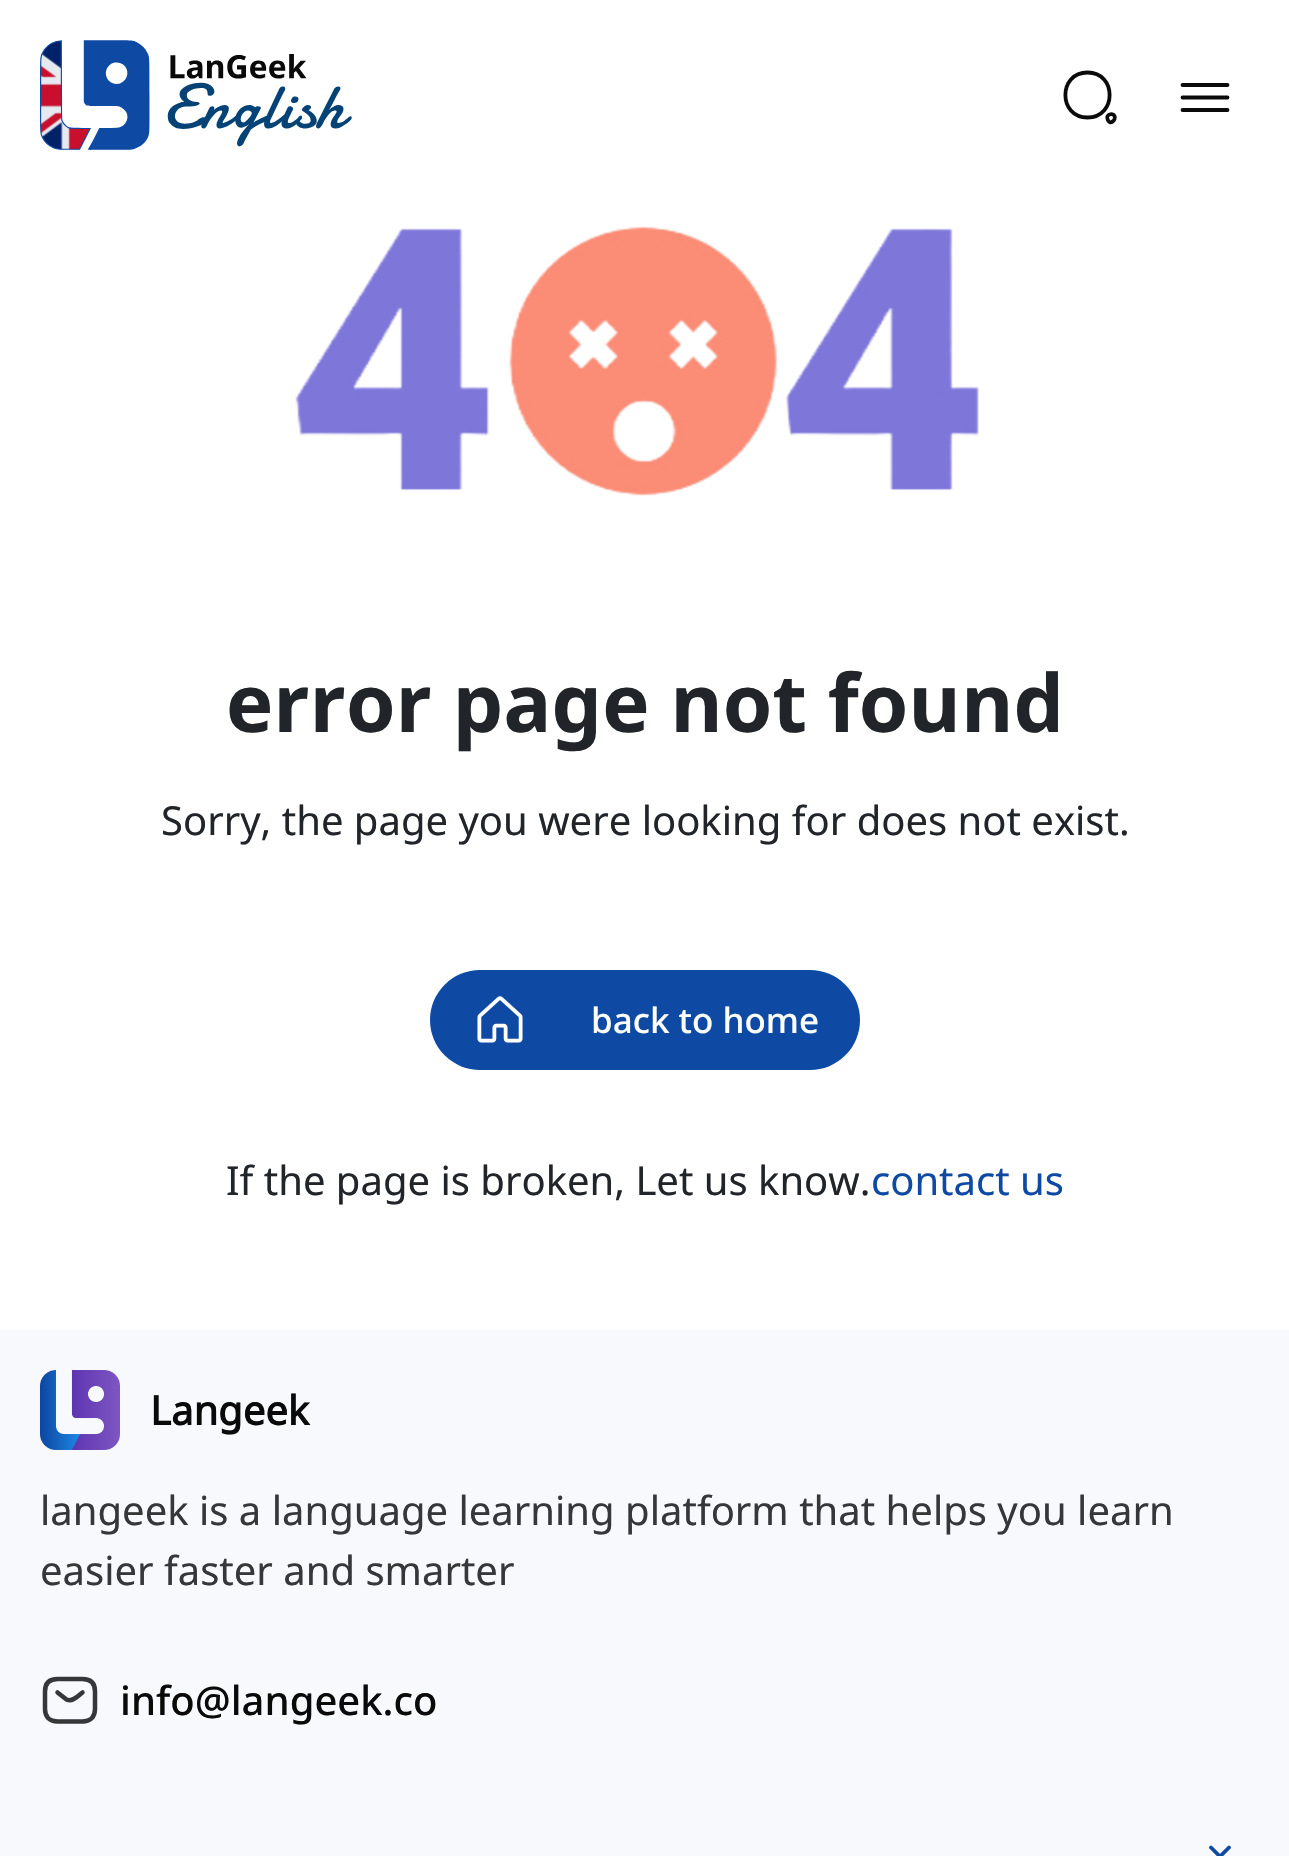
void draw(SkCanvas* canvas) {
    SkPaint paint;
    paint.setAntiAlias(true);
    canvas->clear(0xFFFFFFFF);
    canvas->drawImageRect(SkImages::DeferredFromEncodedData(SkData::MakeFromFileName("img1.png")), SkRect::MakeXYWH(40, 40, 312, 110), SkSamplingOptions());
    paint.setStyle(SkPaint::kStroke_Style);
    paint.setStrokeWidth(3.8f);
    paint.setStrokeCap(SkPaint::kRound_Cap);
    paint.setStrokeJoin(SkPaint::kRound_Join);
    paint.setColor(0xFF0A0A0A);
    canvas->drawPath(SkPathBuilder().moveTo(1087.5f, 117.5f).cubicTo(1117, 117.5f, 1117, 72.5f, 1087.5f, 72.5f).cubicTo(1058, 72.5f, 1058, 117.5f, 1087.5f, 117.5f).close().moveTo(1107.5f, 119).cubicTo(1109.5f, 126.5f, 1116.5f, 119.5f, 1114.5f, 116).cubicTo(1113, 112.5f, 1105.5f, 114.5f, 1107.5f, 119).close().detach(), paint);
    paint.setStrokeJoin(SkPaint::kMiter_Join);
    canvas->drawPath(SkPathBuilder().moveTo(1182.5f, 85).lineTo(1227.5f, 85).moveTo(1182.5f, 97.5f).lineTo(1227.5f, 97.5f).moveTo(1182.5f, 110).lineTo(1227.5f, 110).detach(), paint);
    canvas->drawImageRect(SkImages::DeferredFromEncodedData(SkData::MakeFromFileName("img2.png")), SkRect::MakeXYWH(295, 226, 684, 270), SkSamplingOptions());
    SkFont font1(fontMgr->matchFamilyStyle("Noto Sans", SkFontStyle::Bold()), 80);
    font1.setSubpixel(true);
    paint.setStyle(SkPaint::kFill_Style);
    paint.setColor(0xFF212529);
    canvas->drawString("error page not found", 226, 732, font1, paint);
    SkFont font2(fontMgr->matchFamilyStyle("Noto Sans", SkFontStyle::Normal()), 40);
    font2.setSubpixel(true);
    canvas->drawString("Sorry, the page you were looking for does not exist.", 161, 835, font2, paint);
    paint.setColor(0xFF0E4AA4);
    canvas->drawRoundRect(SkRect::MakeXYWH(430, 970, 430, 100), 50, 50, paint);
    canvas->drawImageRect(SkImages::DeferredFromEncodedData(SkData::MakeFromFileName("img3.png")), SkRect::MakeXYWH(477, 996, 46, 47), SkSamplingOptions());
    SkFont font3(fontMgr->matchFamilyStyle("Noto Sans", SkFontStyle(500, SkFontStyle::kNormal_Width, SkFontStyle::kUpright_Slant)), 35);
    font3.setSubpixel(true);
    paint.setColor(0xFFFFFFFF);
    canvas->drawString("back to home", 591, 1033, font3, paint);
    paint.setColor(0xFF212529);
    canvas->drawString("If the page is broken, Let us know.", 226, 1195, font2, paint);
    paint.setColor(0xFF0E4AA4);
    canvas->drawString("contact us", 871, 1195, font2, paint);
    paint.setColor(0xFFF7F9FC);
    canvas->drawRect(SkRect::MakeXYWH(0, 1330, 1289, 526), paint);
    canvas->drawImageRect(SkImages::DeferredFromEncodedData(SkData::MakeFromFileName("img4.png")), SkRect::MakeXYWH(40, 1370, 80, 80), SkSamplingOptions());
    SkFont font4(fontMgr->matchFamilyStyle("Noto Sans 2", SkFontStyle::Bold()), 40);
    font4.setSubpixel(true);
    paint.setColor(0xFF0A0A0A);
    canvas->drawString("Langeek", 150, 1425, font4, paint);
    paint.setColor(0xFF353738);
    canvas->drawString("langeek is a language learning platform that helps you learn", 40, 1525, font2, paint);
    canvas->drawString("easier faster and smarter", 40, 1585, font2, paint);
    paint.setStyle(SkPaint::kStroke_Style);
    paint.setStrokeWidth(4.5f);
    paint.setStrokeJoin(SkPaint::kRound_Join);
    canvas->drawPath(SkPathBuilder().moveTo(82.5f, 1721.5f).lineTo(57.5f, 1721.5f).cubicTo(50, 1721.5f, 45, 1717.5f, 45, 1709).lineTo(45, 1691.5f).cubicTo(45, 1682.5f, 50, 1679, 57.5f, 1679).lineTo(82.5f, 1679).cubicTo(90, 1679, 95, 1682.5f, 95, 1691.5f).lineTo(95, 1709).cubicTo(95, 1717.5f, 90, 1721.5f, 82.5f, 1721.5f).close().moveTo(82.5f, 1692.5f).cubicTo(78, 1696, 72.5f, 1702.5f, 66.5f, 1699.5f).lineTo(57.5f, 1692.5f).detach(), paint);
    SkFont font5(fontMgr->matchFamilyStyle("Noto Sans", SkFontStyle(500, SkFontStyle::kNormal_Width, SkFontStyle::kUpright_Slant)), 40);
    font5.setSubpixel(true);
    paint.setStyle(SkPaint::kFill_Style);
    paint.setColor(0xFF0A0A0A);
    canvas->drawString("info@langeek.co", 120, 1715, font5, paint);
    paint.setStyle(SkPaint::kStroke_Style);
    paint.setStrokeWidth(3.8f);
    paint.setColor(0xFF0E4AA4);
    canvas->drawPath(SkPathBuilder().moveTo(1211, 1847.5f).lineTo(1220, 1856.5f).lineTo(1229, 1847.5f).detach(), paint);
}
